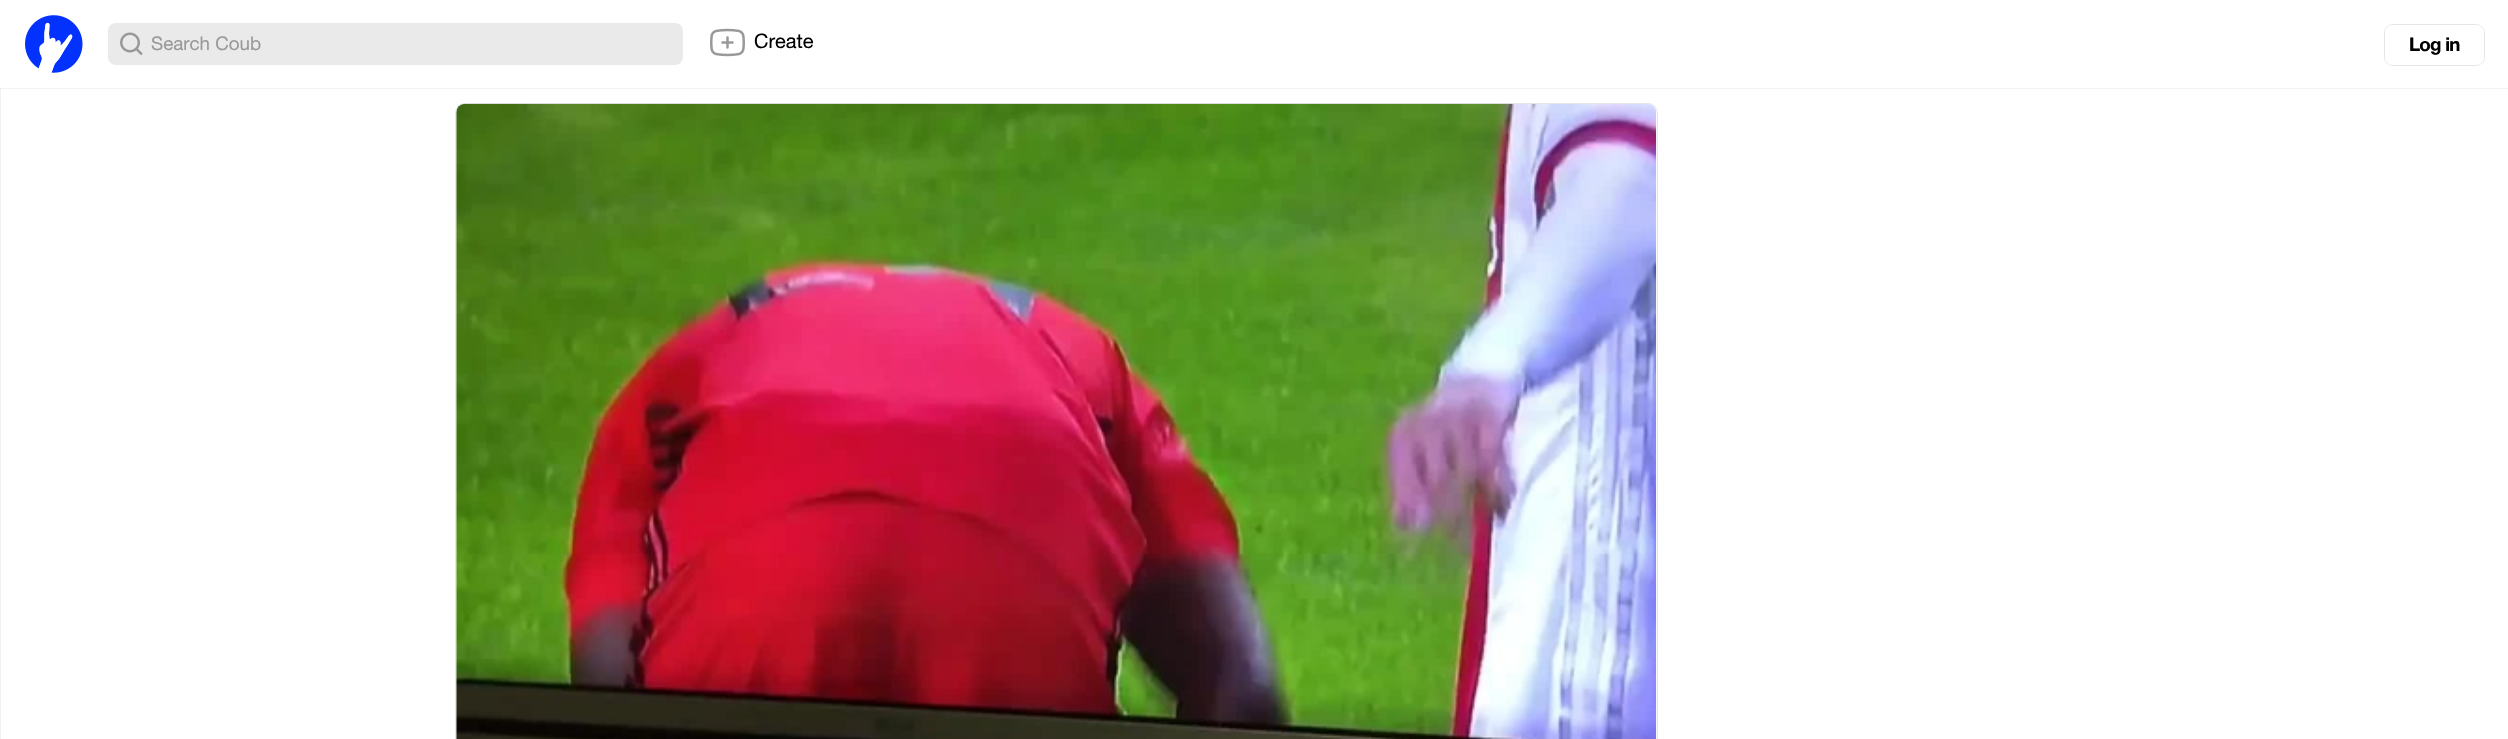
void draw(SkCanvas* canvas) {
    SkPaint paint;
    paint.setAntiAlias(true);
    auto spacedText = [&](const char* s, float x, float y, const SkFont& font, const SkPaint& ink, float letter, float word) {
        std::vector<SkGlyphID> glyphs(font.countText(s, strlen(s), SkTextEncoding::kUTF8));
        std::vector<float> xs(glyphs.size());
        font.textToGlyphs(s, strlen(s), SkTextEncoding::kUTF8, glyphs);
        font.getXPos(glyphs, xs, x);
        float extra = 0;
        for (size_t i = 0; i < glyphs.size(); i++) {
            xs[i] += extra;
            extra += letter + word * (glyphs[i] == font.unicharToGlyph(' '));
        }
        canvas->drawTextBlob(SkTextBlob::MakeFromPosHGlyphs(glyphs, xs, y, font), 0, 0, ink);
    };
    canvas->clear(0xFFFFFFFF);
    paint.setStyle(SkPaint::kStroke_Style);
    paint.setStrokeWidth(1);
    paint.setColor(0xFFF2F2F2);
    canvas->drawRect(SkRect::MakeXYWH(-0.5f, -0.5f, 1, 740), paint);
    paint.setStyle(SkPaint::kFill_Style);
    paint.setColor(0x0D000000);
    canvas->drawPath(SkPathBuilder().moveTo(0, 88).lineTo(0, 89).lineTo(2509, 89).lineTo(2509, 1).lineTo(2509, 88).close().detach(), paint);
    paint.setColor(0xFFFFFFFF);
    canvas->drawRect(SkRect::MakeXYWH(0, 0, 1, 88), paint);
    canvas->drawImageRect(SkImages::DeferredFromEncodedData(SkData::MakeFromFileName("img1.png")), SkRect::MakeXYWH(25, 15, 58, 58), SkSamplingOptions());
    paint.setColor(0xFFEAEAEA);
    canvas->drawRoundRect(SkRect::MakeXYWH(108, 23, 575, 42), 8, 8, paint);
    canvas->drawImageRect(SkImages::DeferredFromEncodedData(SkData::MakeFromFileName("img2.png")), SkRect::MakeXYWH(120, 32, 23, 23), SkSamplingOptions());
    SkFont font1(fontMgr->matchFamilyStyle("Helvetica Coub", SkFontStyle::Normal()), 18.75f);
    font1.setSubpixel(true);
    paint.setColor(0xFF999999);
    canvas->drawString("Search Coub", 151, 50, font1, paint);
    canvas->drawImageRect(SkImages::DeferredFromEncodedData(SkData::MakeFromFileName("img3.png")), SkRect::MakeXYWH(710, 28, 35, 29), SkSamplingOptions());
    SkFont font2(fontMgr->matchFamilyStyle("Helvetica Coub", SkFontStyle::Normal()), 20);
    font2.setSubpixel(true);
    paint.setColor(0xFF000000);
    canvas->drawString("Create", 754, 48, font2, paint);
    paint.setStyle(SkPaint::kStroke_Style);
    paint.setColor(0xFFE6E6E6);
    canvas->drawRoundRect(SkRect::MakeXYWH(2384.5f, 24.5f, 100, 41), 8.5f, 8.5f, paint);
    paint.setStyle(SkPaint::kFill_Style);
    paint.setColor(0xFFFFFFFF);
    canvas->drawRoundRect(SkRect::MakeXYWH(2385, 25, 99, 40), 8, 8, paint);
    SkFont font3(fontMgr->matchFamilyStyle("Helvetica Coub", SkFontStyle::Bold()), 18.75f);
    font3.setSubpixel(true);
    paint.setColor(0xFF000000);
    spacedText("Log in", 2409, 51, font3, paint, -0.75f, 0);
    paint.setStyle(SkPaint::kStroke_Style);
    paint.setColor(0xFFE6E6E6);
    canvas->drawRoundRect(SkRect::MakeXYWH(455.5f, 103.5f, 1202, 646), 9.5f, 9.5f, paint);
    canvas->drawImageRect(SkImages::DeferredFromEncodedData(SkData::MakeFromFileName("img4.png")), SkRect::MakeXYWH(456, 103, 1201, 636), SkSamplingOptions());
}
